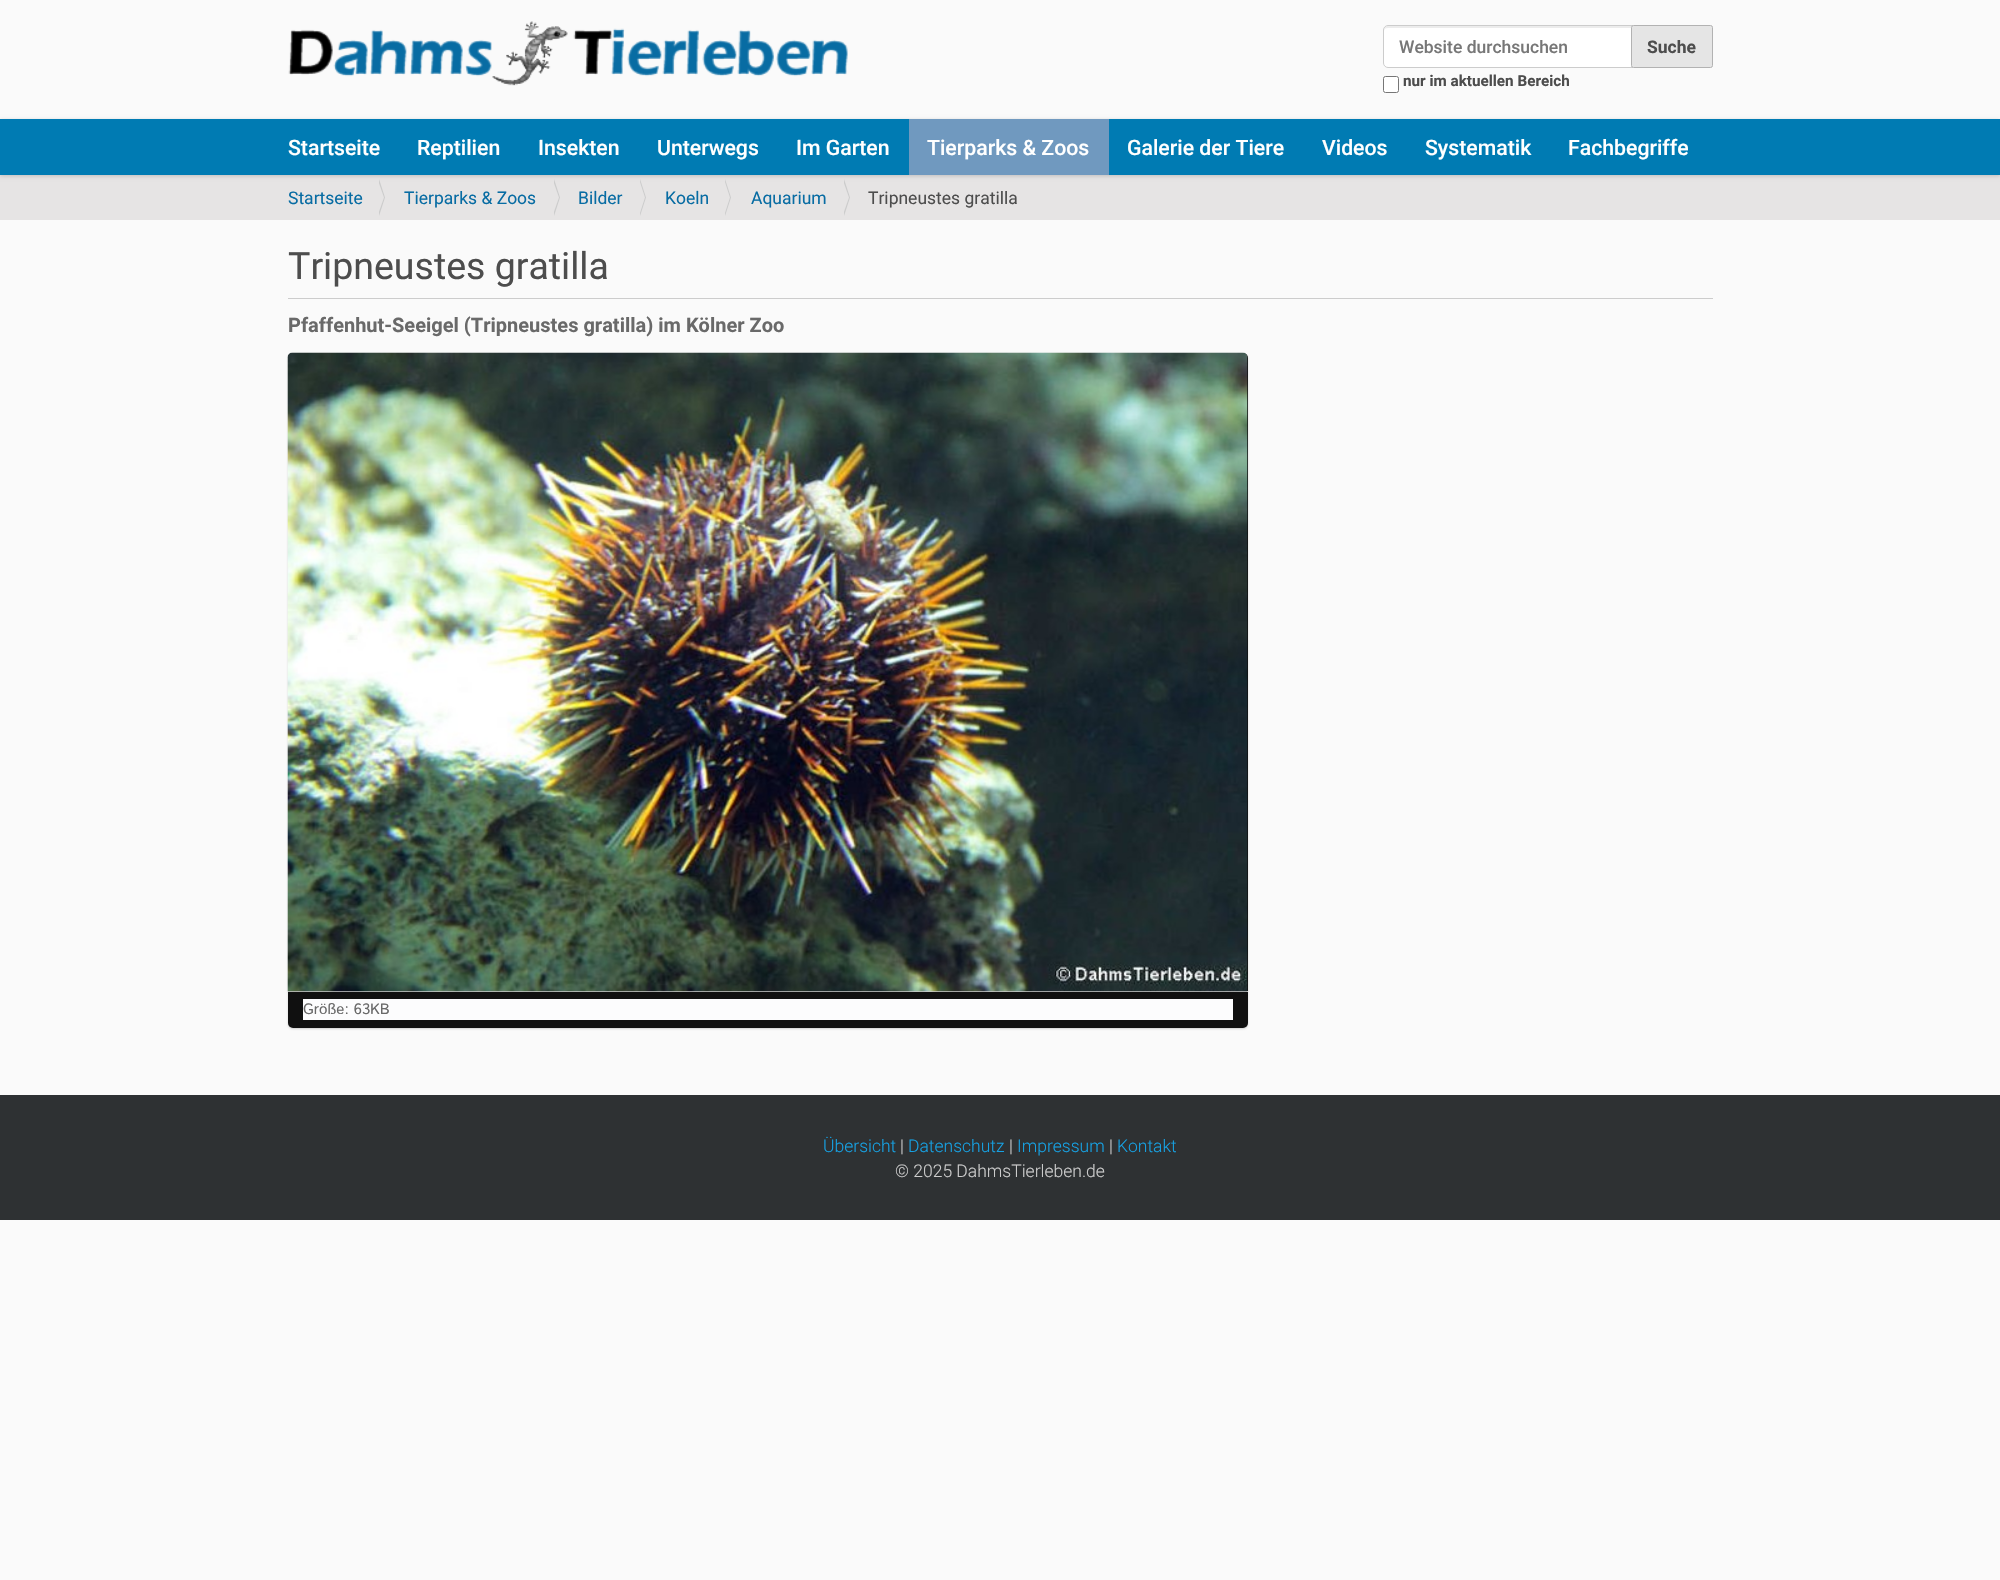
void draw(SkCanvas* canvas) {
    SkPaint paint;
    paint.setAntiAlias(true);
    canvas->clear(0xFFFAFAFA);
    canvas->drawImageRect(SkImages::DeferredFromEncodedData(SkData::MakeFromFileName("img1.png")), SkRect::MakeXYWH(288, 21, 560, 65), SkSamplingOptions());
    paint.setColor(0xFFFFFFFF);
    canvas->drawPath(SkPathBuilder().moveTo(1388, 25).lineTo(1633, 25).lineTo(1633, 68).lineTo(1388, 68).cubicTo(1385, 68, 1383, 66, 1383, 63).lineTo(1383, 30).cubicTo(1383, 27, 1385, 25, 1388, 25).close().detach(), paint);
    paint.setColor(0xFFECECEC);
    canvas->drawPath(SkPathBuilder().moveTo(1388, 28).lineTo(1631, 28).lineTo(1631, 26).lineTo(1388, 26).cubicTo(1386, 26, 1384, 28, 1384, 30).lineTo(1384, 31).cubicTo(1384, 29, 1385, 28, 1388, 28).close().detach(), paint);
    paint.setStyle(SkPaint::kStroke_Style);
    paint.setStrokeWidth(1);
    paint.setColor(0xFFCCCCCC);
    canvas->drawPath(SkPathBuilder().moveTo(1388, 25.5f).lineTo(1632.5f, 25.5f).lineTo(1632.5f, 67.5f).lineTo(1388, 67.5f).cubicTo(1385.5f, 67.5f, 1383.5f, 65.5f, 1383.5f, 63).lineTo(1383.5f, 30).cubicTo(1383.5f, 27.5f, 1385.5f, 25.5f, 1388, 25.5f).close().detach(), paint);
    SkFont font1(fontMgr->matchFamilyStyle("Roboto", SkFontStyle(500, SkFontStyle::kNormal_Width, SkFontStyle::kUpright_Slant)), 17.5f);
    font1.setSubpixel(true);
    paint.setStyle(SkPaint::kFill_Style);
    paint.setColor(0xFF777777);
    canvas->drawString("Website durchsuchen", 1399, 53, font1, paint);
    paint.setColor(0xFFE5E5E5);
    canvas->drawRoundRect(SkRect::MakeXYWH(1631.5f, 25.5f, 81, 42), 2, 2, paint);
    paint.setStyle(SkPaint::kStroke_Style);
    paint.setColor(0xFFB2B2B2);
    canvas->drawRoundRect(SkRect::MakeXYWH(1631.5f, 25.5f, 81, 42), 2, 2, paint);
    SkFont font2(fontMgr->matchFamilyStyle("Roboto", SkFontStyle::Bold()), 17.5f);
    font2.setSubpixel(true);
    paint.setStyle(SkPaint::kFill_Style);
    paint.setColor(0xFF4D4D4D);
    canvas->drawString("Suche", 1647, 53, font2, paint);
    paint.setColor(0xFFFFFFFF);
    canvas->drawRoundRect(SkRect::MakeXYWH(1383.5f, 76.5f, 15, 16), 2, 2, paint);
    paint.setStyle(SkPaint::kStroke_Style);
    paint.setColor(0xFF767676);
    canvas->drawRoundRect(SkRect::MakeXYWH(1383.5f, 76.5f, 15, 16), 2, 2, paint);
    SkFont font3(fontMgr->matchFamilyStyle("Roboto", SkFontStyle::Bold()), 15.25f);
    font3.setSubpixel(true);
    paint.setStyle(SkPaint::kFill_Style);
    paint.setColor(0xFF4D4D4D);
    canvas->drawString("nur im aktuellen Bereich", 1403, 86, font3, paint);
    paint.setColor(0xFFE6E4E4);
    canvas->drawRect(SkRect::MakeXYWH(0, 175, 2000, 45), paint);
    paint.setColor(0x2B000000);
    paint.setMaskFilter(SkMaskFilter::MakeBlur(kNormal_SkBlurStyle, 2));
    canvas->drawRect(SkRect::MakeXYWH(0, 120, 2000, 56), paint);
    paint.setMaskFilter(nullptr);
    paint.setColor(0xFF007BB3);
    canvas->drawRect(SkRect::MakeXYWH(0, 119, 2000, 56), paint);
    SkFont font4(fontMgr->matchFamilyStyle("Roboto", SkFontStyle(500, SkFontStyle::kNormal_Width, SkFontStyle::kUpright_Slant)), 21.25f);
    font4.setSubpixel(true);
    paint.setColor(0xFFFFFFFF);
    canvas->drawString("Startseite", 288, 155, font4, paint);
    canvas->drawString("Reptilien", 417, 155, font4, paint);
    canvas->drawString("Insekten", 538, 155, font4, paint);
    canvas->drawString("Unterwegs", 657, 155, font4, paint);
    canvas->drawString("Im Garten", 796, 155, font4, paint);
    paint.setColor(0xFF7099BF);
    canvas->drawRect(SkRect::MakeXYWH(909, 119, 200, 56), paint);
    paint.setColor(0xFFFFFFFF);
    canvas->drawString("Tierparks & Zoos", 927, 155, font4, paint);
    canvas->drawString("Galerie der Tiere", 1127, 155, font4, paint);
    canvas->drawString("Videos", 1322, 155, font4, paint);
    canvas->drawString("Systematik", 1425, 155, font4, paint);
    canvas->drawString("Fachbegriffe", 1568, 155, font4, paint);
    SkFont font5(fontMgr->matchFamilyStyle("Roboto", SkFontStyle::Normal()), 17.5f);
    font5.setSubpixel(true);
    paint.setColor(0xFF086CA3);
    canvas->drawString("Startseite", 288, 204, font5, paint);
    paint.setColor(0xFFCCCCCC);
    canvas->drawPath(SkPathBuilder().moveTo(379, 216).lineTo(379, 179).lineTo(385, 197.5f).close().detach(), paint);
    paint.setColor(0xFFE6E4E4);
    canvas->drawPath(SkPathBuilder().moveTo(377.5f, 216).lineTo(377.5f, 179).lineTo(384, 197.5f).close().detach(), paint);
    paint.setColor(0xFF086CA3);
    canvas->drawString("Tierparks & Zoos", 404, 204, font5, paint);
    paint.setColor(0xFFCCCCCC);
    canvas->drawPath(SkPathBuilder().moveTo(554, 216).lineTo(554, 179).lineTo(560, 197.5f).close().detach(), paint);
    paint.setColor(0xFFE6E4E4);
    canvas->drawPath(SkPathBuilder().moveTo(552.5f, 216).lineTo(552.5f, 179).lineTo(559, 197.5f).close().detach(), paint);
    paint.setColor(0xFF086CA3);
    canvas->drawString("Bilder", 578, 204, font5, paint);
    paint.setColor(0xFFCCCCCC);
    canvas->drawPath(SkPathBuilder().moveTo(640, 216).lineTo(640, 179).lineTo(646, 197.5f).close().detach(), paint);
    paint.setColor(0xFFE6E4E4);
    canvas->drawPath(SkPathBuilder().moveTo(639, 216).lineTo(639, 179).lineTo(645, 197.5f).close().detach(), paint);
    paint.setColor(0xFF086CA3);
    canvas->drawString("Koeln", 665, 204, font5, paint);
    paint.setColor(0xFFCCCCCC);
    canvas->drawPath(SkPathBuilder().moveTo(725, 216).lineTo(725, 179).lineTo(731, 197.5f).close().detach(), paint);
    paint.setColor(0xFFE6E4E4);
    canvas->drawPath(SkPathBuilder().moveTo(724, 216).lineTo(724, 179).lineTo(730, 197.5f).close().detach(), paint);
    paint.setColor(0xFF086CA3);
    canvas->drawString("Aquarium", 751, 204, font5, paint);
    paint.setColor(0xFFCCCCCC);
    canvas->drawPath(SkPathBuilder().moveTo(844, 216).lineTo(844, 179).lineTo(850, 197.5f).close().detach(), paint);
    paint.setColor(0xFFE6E4E4);
    canvas->drawPath(SkPathBuilder().moveTo(842.5f, 216).lineTo(842.5f, 179).lineTo(849, 197.5f).close().detach(), paint);
    paint.setColor(0xFF4D4D4D);
    canvas->drawString("Tripneustes gratilla", 868, 204, font5, paint);
    paint.setColor(0xFFCCCCCC);
    canvas->drawRect(SkRect::MakeXYWH(288, 298, 1425, 1), paint);
    SkFont font6(fontMgr->matchFamilyStyle("Roboto", SkFontStyle::Normal()), 37.5f);
    font6.setSubpixel(true);
    paint.setColor(0xFF4D4D4D);
    canvas->drawString("Tripneustes gratilla", 288, 279, font6, paint);
    SkFont font7(fontMgr->matchFamilyStyle("Roboto", SkFontStyle::Bold()), 20);
    font7.setSubpixel(true);
    paint.setColor(0xFF696969);
    canvas->drawString("Pfaffenhut-Seeigel (Tripneustes gratilla) im Kölner Zoo", 288, 332, font7, paint);
    paint.setColor(0x2B000000);
    paint.setMaskFilter(SkMaskFilter::MakeBlur(kNormal_SkBlurStyle, 1));
    canvas->drawRoundRect(SkRect::MakeXYWH(288, 354, 960, 675), 5, 5, paint);
    paint.setMaskFilter(nullptr);
    paint.setColor(0xFF101010);
    canvas->drawRoundRect(SkRect::MakeXYWH(288, 353, 960, 675), 5, 5, paint);
    paint.setColor(0xFFCCCCCC);
    canvas->drawRect(SkRect::MakeXYWH(288, 991, 960, 1), paint);
    canvas->drawImageRect(SkImages::DeferredFromEncodedData(SkData::MakeFromFileName("img2.png")), SkRect::MakeXYWH(287, 352, 961, 640), SkSamplingOptions());
    paint.setColor(0xFFFCFCFD);
    canvas->drawRect(SkRect::MakeXYWH(303, 999, 930, 21), paint);
    SkFont font8(fontMgr->matchFamilyStyle("Istok Web", SkFontStyle::Normal()), 15);
    font8.setSubpixel(true);
    paint.setColor(0xFF696969);
    canvas->drawString("Größe: 63KB", 303, 1014, font8, paint);
    paint.setColor(0xFF2E3133);
    canvas->drawRect(SkRect::MakeXYWH(0, 1095, 2000, 125), paint);
    SkFont font9(fontMgr->matchFamilyStyle("Roboto", SkFontStyle(300, SkFontStyle::kNormal_Width, SkFontStyle::kUpright_Slant)), 17.5f);
    font9.setSubpixel(true);
    paint.setColor(0xFF16A1E3);
    canvas->drawString("Übersicht", 823, 1152, font9, paint);
    paint.setColor(0xFFCCCCCC);
    canvas->drawString("|", 900, 1152, font9, paint);
    paint.setColor(0xFF16A1E3);
    canvas->drawString("Datenschutz", 908, 1152, font9, paint);
    paint.setColor(0xFFCCCCCC);
    canvas->drawString("|", 1009, 1152, font9, paint);
    paint.setColor(0xFF16A1E3);
    canvas->drawString("Impressum", 1017, 1152, font9, paint);
    paint.setColor(0xFFCCCCCC);
    canvas->drawString("|", 1109, 1152, font9, paint);
    paint.setColor(0xFF16A1E3);
    canvas->drawString("Kontakt", 1117, 1152, font9, paint);
    paint.setColor(0xFFCCCCCC);
    canvas->drawString("© 2025 DahmsTierleben.de", 895, 1177, font9, paint);
}
